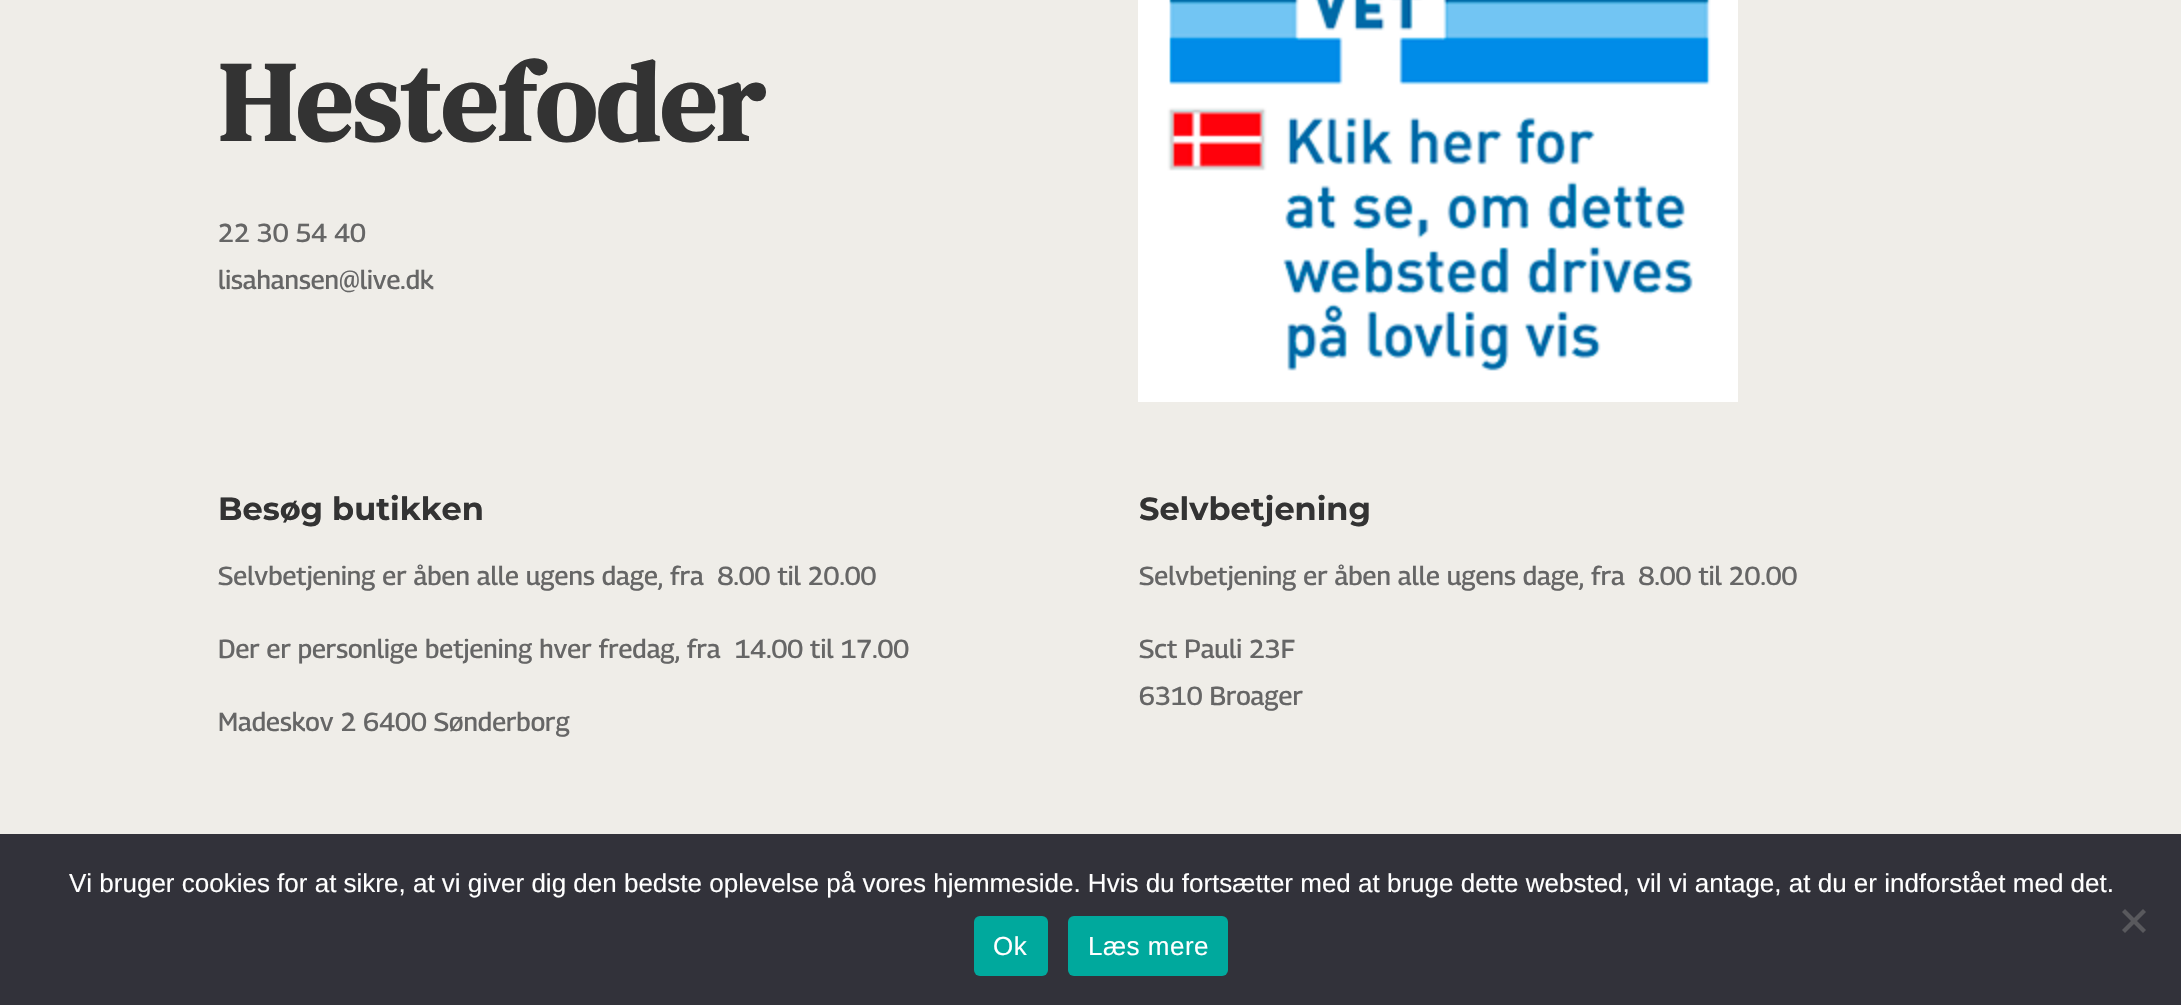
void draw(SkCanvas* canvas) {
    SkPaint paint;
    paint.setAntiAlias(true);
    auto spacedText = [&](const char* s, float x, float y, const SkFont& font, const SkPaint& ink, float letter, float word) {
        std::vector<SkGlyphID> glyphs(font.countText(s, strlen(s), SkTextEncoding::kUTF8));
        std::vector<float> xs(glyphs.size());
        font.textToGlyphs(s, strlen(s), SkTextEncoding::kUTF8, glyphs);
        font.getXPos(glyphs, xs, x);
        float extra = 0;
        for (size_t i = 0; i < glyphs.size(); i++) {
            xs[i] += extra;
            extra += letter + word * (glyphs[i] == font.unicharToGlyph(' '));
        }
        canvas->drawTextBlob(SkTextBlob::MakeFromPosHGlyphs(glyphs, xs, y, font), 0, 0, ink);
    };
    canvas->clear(0xFFEFEDE8);
    SkFont font1(fontMgr->matchFamilyStyle("DM Serif Text", SkFontStyle::Bold()), 112);
    font1.setSubpixel(true);
    paint.setColor(0xFF333333);
    canvas->drawString("Hestefoder", 218, 141, font1, paint);
    SkFont font2(fontMgr->matchFamilyStyle("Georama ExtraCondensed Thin", SkFontStyle(100, SkFontStyle::kNormal_Width, SkFontStyle::kUpright_Slant)), 26);
    font2.setSubpixel(true);
    paint.setColor(0xFF666666);
    canvas->drawString("22 30 54 40", 218, 242, font2, paint);
    canvas->drawString("lisahansen@live.dk", 218, 289, font2, paint);
    canvas->drawImageRect(SkImages::DeferredFromEncodedData(SkData::MakeFromFileName("img1.png")), SkRect::MakeXYWH(1138, 0, 600, 402), SkSamplingOptions());
    SkFont font3(fontMgr->matchFamilyStyle("Montserrat", SkFontStyle(100, SkFontStyle::kNormal_Width, SkFontStyle::kUpright_Slant)), 32);
    font3.setSubpixel(true);
    paint.setColor(0xFF333333);
    canvas->drawString("Besøg butikken", 218, 520, font3, paint);
    paint.setColor(0xFF666666);
    canvas->drawString("Selvbetjening er åben alle ugens dage, fra  8.00 til 20.00", 218, 585, font2, paint);
    canvas->drawString("Der er personlige betjening hver fredag, fra  14.00 til 17.00", 218, 658, font2, paint);
    canvas->drawString("Madeskov 2 6400 Sønderborg", 218, 731, font2, paint);
    paint.setColor(0xFF333333);
    canvas->drawString("Selvbetjening", 1139, 520, font3, paint);
    paint.setColor(0xFF666666);
    canvas->drawString("Selvbetjening er åben alle ugens dage, fra  8.00 til 20.00", 1139, 585, font2, paint);
    canvas->drawString("Sct Pauli 23F", 1139, 658, font2, paint);
    canvas->drawString("6310 Broager", 1139, 705, font2, paint);
    paint.setColor(0xFF32323A);
    canvas->drawRect(SkRect::MakeXYWH(0, 834, 2181, 171), paint);
    SkFont font4(fontMgr->matchFamilyStyle("Liberation Sans", SkFontStyle::Normal()), 26);
    font4.setSubpixel(true);
    paint.setColor(0xFFFFFFFF);
    canvas->drawString("Vi bruger cookies for at sikre, at vi giver dig den bedste oplevelse på vores hjemmeside. Hvis du fortsætter med at bruge dette websted, vil vi antage, at du er indforstået med det.", 69, 892, font4, paint);
    paint.setColor(0xFF59595D);
    canvas->drawPath(SkPathBuilder().moveTo(2143, 909).lineTo(2146, 912).lineTo(2125, 933).lineTo(2122, 930).close().detach(), paint);
    canvas->drawPath(SkPathBuilder().moveTo(2122, 912).lineTo(2125, 909).lineTo(2146, 930).lineTo(2143, 933).close().detach(), paint);
    paint.setColor(0xFF00A99D);
    canvas->drawRoundRect(SkRect::MakeXYWH(974, 916, 74, 60), 6, 6, paint);
    paint.setColor(0xFFFFFFFF);
    spacedText("Ok", 993, 955, font4, paint, 0.5f, 0);
    paint.setColor(0xFF00A99D);
    canvas->drawRoundRect(SkRect::MakeXYWH(1068, 916, 160, 60), 6, 6, paint);
    paint.setColor(0xFFFFFFFF);
    spacedText("Læs mere", 1088, 955, font4, paint, 0.5f, 0);
}
